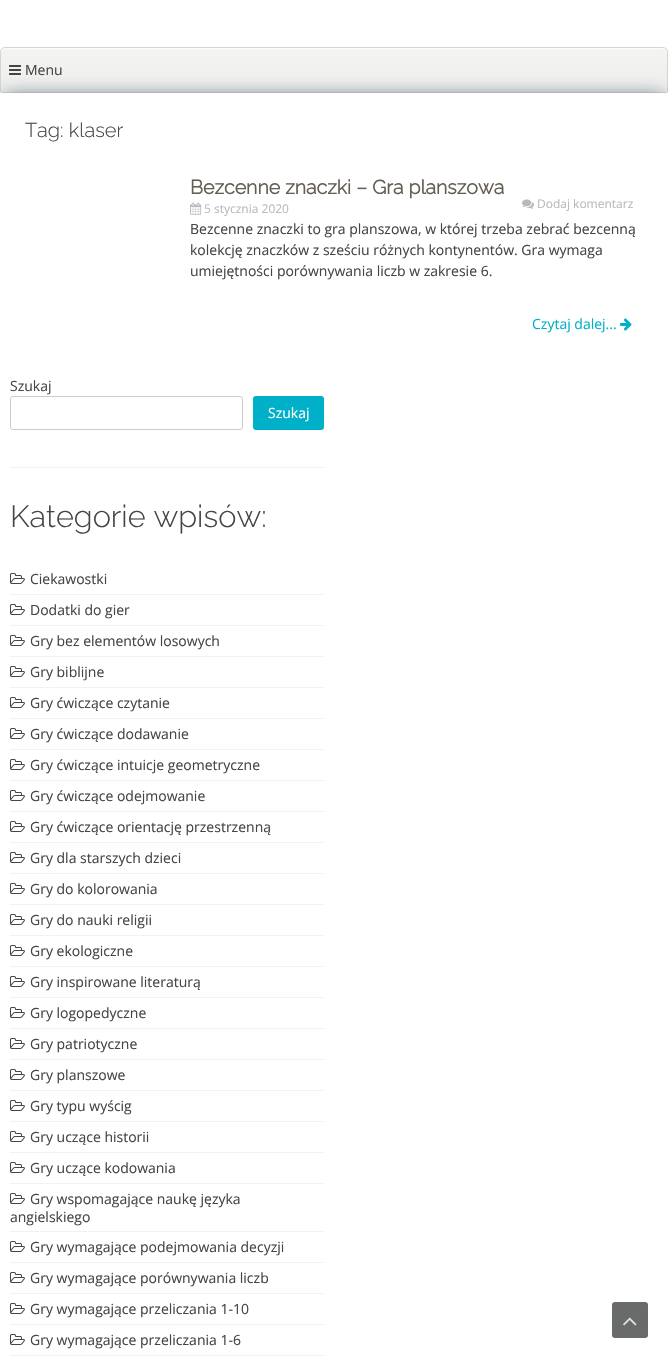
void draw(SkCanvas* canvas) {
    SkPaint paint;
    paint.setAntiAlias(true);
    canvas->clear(0xFFFFFFFF);
    canvas->save();
    canvas->clipPath(SkPathBuilder().moveTo(5, 47).lineTo(663, 47).cubicTo(666, 47, 668, 49, 668, 52).lineTo(668, 91).cubicTo(668, 92, 667, 93, 666, 93).lineTo(2, 93).cubicTo(1, 93, 0, 92, 0, 91).lineTo(0, 52).cubicTo(0, 49, 2, 47, 5, 47).close().detach(), true);
    {
        const SkColor colors[] = {0xFFF4F4F2, 0xFFEDEDEB};
        const float stops[] = {0, 1};
        const SkPoint ends[] = {{334, 48}, {334, 92}};
        paint.setShader(SkGradientShader::MakeLinear(ends, colors, stops, 2, SkTileMode::kClamp));
        paint.setAlpha(255);
    }
    canvas->drawRect(SkRect::MakeXYWH(0, 48, 668, 44), paint);
    canvas->restore();
    paint.setShader(nullptr);
    paint.setColor(0xFFFDFDFC);
    canvas->drawPath(SkPathBuilder().moveTo(5, 49).lineTo(663, 49).cubicTo(665, 49, 667, 51, 667, 53).cubicTo(667, 50, 666, 48, 663, 48).lineTo(5, 48).lineTo(2, 49).lineTo(1, 50).lineTo(1, 53).cubicTo(1, 51, 3, 49, 5, 49).close().detach(), paint);
    paint.setStyle(SkPaint::kStroke_Style);
    paint.setStrokeWidth(1);
    paint.setColor(0xFFD4D4D4);
    canvas->drawPath(SkPathBuilder().moveTo(5, 47.5f).lineTo(663, 47.5f).cubicTo(665.5f, 47.5f, 667.5f, 49.5f, 667.5f, 52).lineTo(667.5f, 91).cubicTo(667.5f, 92, 667, 92.5f, 666, 92.5f).lineTo(2, 92.5f).cubicTo(1, 92.5f, 0.5f, 92, 0.5f, 91).lineTo(0.5f, 52).cubicTo(0.5f, 49.5f, 2.5f, 47.5f, 5, 47.5f).close().detach(), paint);
    canvas->save();
    canvas->clipRect(SkRect::MakeXYWH(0, 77, 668, 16));
    paint.setStyle(SkPaint::kFill_Style);
    paint.setColor(0xFF85969F);
    paint.setMaskFilter(SkMaskFilter::MakeBlur(kNormal_SkBlurStyle, 8));
    canvas->drawRoundRect(SkRect::MakeXYWH(0, 93, 668, 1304), 15, 15, paint);
    paint.setMaskFilter(nullptr);
    canvas->restore();
    canvas->drawImageRect(SkImages::DeferredFromEncodedData(SkData::MakeFromFileName("img1.png")), SkRect::MakeXYWH(9, 65, 12, 10), SkSamplingOptions());
    SkFont font1(fontMgr->matchFamilyStyle("Open Sans", SkFontStyle::Normal()), 14);
    font1.setSubpixel(true);
    paint.setColor(0xFF444545);
    canvas->drawString("Menu", 25, 75, font1, paint);
    SkFont font2(fontMgr->matchFamilyStyle("Raleway", SkFontStyle(100, SkFontStyle::kNormal_Width, SkFontStyle::kUpright_Slant)), 20);
    font2.setSubpixel(true);
    canvas->drawString("Tag: klaser", 25, 137, font2, paint);
    SkFont font3(fontMgr->matchFamilyStyle("Raleway", SkFontStyle::Bold()), 19.6f);
    font3.setSubpixel(true);
    paint.setColor(0xFF645F54);
    canvas->drawString("Bezcenne znaczki – Gra planszowa", 190, 194, font3, paint);
    canvas->drawImageRect(SkImages::DeferredFromEncodedData(SkData::MakeFromFileName("img2.png")), SkRect::MakeXYWH(190, 202, 12, 13), SkSamplingOptions());
    SkFont font4(fontMgr->matchFamilyStyle("Open Sans", SkFontStyle::Normal()), 12);
    font4.setSubpixel(true);
    paint.setColor(0xFFBABABA);
    canvas->drawString("5 stycznia 2020", 204, 213, font4, paint);
    canvas->drawImageRect(SkImages::DeferredFromEncodedData(SkData::MakeFromFileName("img3.png")), SkRect::MakeXYWH(522, 199, 12, 10), SkSamplingOptions());
    canvas->drawString("Dodaj komentarz", 537, 208, font4, paint);
    paint.setColor(0xFF444545);
    canvas->drawString("Bezcenne znaczki to gra planszowa, w której trzeba zebrać bezcenną", 190, 234, font1, paint);
    canvas->drawString("kolekcję znaczków z sześciu różnych kontynentów. Gra wymaga", 190, 255, font1, paint);
    canvas->drawString("umiejętności porównywania liczb w zakresie 6.", 190, 276, font1, paint);
    paint.setColor(0xFF00B0C8);
    canvas->drawString("Czytaj dalej...", 532, 329, font1, paint);
    canvas->drawImageRect(SkImages::DeferredFromEncodedData(SkData::MakeFromFileName("img4.png")), SkRect::MakeXYWH(620, 318, 12, 13), SkSamplingOptions());
    paint.setColor(0xFF444545);
    canvas->drawString("Szukaj", 10, 391, font1, paint);
    paint.setStyle(SkPaint::kStroke_Style);
    paint.setColor(0xFFCCCCCC);
    canvas->drawRoundRect(SkRect::MakeXYWH(10.5f, 396.5f, 232, 33), 2.5f, 2.5f, paint);
    paint.setStyle(SkPaint::kFill_Style);
    paint.setColor(0xFF00B0C8);
    canvas->drawRoundRect(SkRect::MakeXYWH(253, 396, 71, 34), 3, 3, paint);
    paint.setColor(0xFFFFFFFF);
    canvas->drawString("Szukaj", 268, 418, font1, paint);
    paint.setColor(0xFFF2F2F2);
    canvas->drawRect(SkRect::MakeXYWH(10, 467, 314, 1), paint);
    SkFont font5(fontMgr->matchFamilyStyle("Raleway", SkFontStyle(100, SkFontStyle::kNormal_Width, SkFontStyle::kUpright_Slant)), 30.75f);
    font5.setSubpixel(true);
    paint.setColor(0xFF444545);
    canvas->drawString("Kategorie wpisów:", 10, 527, font5, paint);
    paint.setColor(0xFFF2F2F2);
    canvas->drawRect(SkRect::MakeXYWH(10, 594, 314, 1), paint);
    canvas->drawImageRect(SkImages::DeferredFromEncodedData(SkData::MakeFromFileName("img5.png")), SkRect::MakeXYWH(10, 573, 15, 11), SkSamplingOptions());
    paint.setColor(0xFF444545);
    canvas->drawString("Ciekawostki", 30, 584, font1, paint);
    paint.setColor(0xFFF2F2F2);
    canvas->drawRect(SkRect::MakeXYWH(10, 625, 314, 1), paint);
    canvas->drawImageRect(SkImages::DeferredFromEncodedData(SkData::MakeFromFileName("img5.png")), SkRect::MakeXYWH(10, 604, 15, 11), SkSamplingOptions());
    paint.setColor(0xFF444545);
    canvas->drawString("Dodatki do gier", 30, 615, font1, paint);
    paint.setColor(0xFFF2F2F2);
    canvas->drawRect(SkRect::MakeXYWH(10, 656, 314, 1), paint);
    canvas->drawImageRect(SkImages::DeferredFromEncodedData(SkData::MakeFromFileName("img5.png")), SkRect::MakeXYWH(10, 635, 15, 11), SkSamplingOptions());
    paint.setColor(0xFF444545);
    canvas->drawString("Gry bez elementów losowych", 30, 646, font1, paint);
    paint.setColor(0xFFF2F2F2);
    canvas->drawRect(SkRect::MakeXYWH(10, 687, 314, 1), paint);
    canvas->drawImageRect(SkImages::DeferredFromEncodedData(SkData::MakeFromFileName("img5.png")), SkRect::MakeXYWH(10, 666, 15, 11), SkSamplingOptions());
    paint.setColor(0xFF444545);
    canvas->drawString("Gry biblijne", 30, 677, font1, paint);
    paint.setColor(0xFFF2F2F2);
    canvas->drawRect(SkRect::MakeXYWH(10, 718, 314, 1), paint);
    canvas->drawImageRect(SkImages::DeferredFromEncodedData(SkData::MakeFromFileName("img5.png")), SkRect::MakeXYWH(10, 697, 15, 11), SkSamplingOptions());
    paint.setColor(0xFF444545);
    canvas->drawString("Gry ćwiczące czytanie", 30, 708, font1, paint);
    paint.setColor(0xFFF2F2F2);
    canvas->drawRect(SkRect::MakeXYWH(10, 749, 314, 1), paint);
    canvas->drawImageRect(SkImages::DeferredFromEncodedData(SkData::MakeFromFileName("img5.png")), SkRect::MakeXYWH(10, 728, 15, 11), SkSamplingOptions());
    paint.setColor(0xFF444545);
    canvas->drawString("Gry ćwiczące dodawanie", 30, 739, font1, paint);
    paint.setColor(0xFFF2F2F2);
    canvas->drawRect(SkRect::MakeXYWH(10, 780, 314, 1), paint);
    canvas->drawImageRect(SkImages::DeferredFromEncodedData(SkData::MakeFromFileName("img5.png")), SkRect::MakeXYWH(10, 759, 15, 11), SkSamplingOptions());
    paint.setColor(0xFF444545);
    canvas->drawString("Gry ćwiczące intuicje geometryczne", 30, 770, font1, paint);
    paint.setColor(0xFFF2F2F2);
    canvas->drawRect(SkRect::MakeXYWH(10, 811, 314, 1), paint);
    canvas->drawImageRect(SkImages::DeferredFromEncodedData(SkData::MakeFromFileName("img5.png")), SkRect::MakeXYWH(10, 790, 15, 11), SkSamplingOptions());
    paint.setColor(0xFF444545);
    canvas->drawString("Gry ćwiczące odejmowanie", 30, 801, font1, paint);
    paint.setColor(0xFFF2F2F2);
    canvas->drawRect(SkRect::MakeXYWH(10, 842, 314, 1), paint);
    canvas->drawImageRect(SkImages::DeferredFromEncodedData(SkData::MakeFromFileName("img5.png")), SkRect::MakeXYWH(10, 821, 15, 11), SkSamplingOptions());
    paint.setColor(0xFF444545);
    canvas->drawString("Gry ćwiczące orientację przestrzenną", 30, 832, font1, paint);
    paint.setColor(0xFFF2F2F2);
    canvas->drawRect(SkRect::MakeXYWH(10, 873, 314, 1), paint);
    canvas->drawImageRect(SkImages::DeferredFromEncodedData(SkData::MakeFromFileName("img5.png")), SkRect::MakeXYWH(10, 852, 15, 11), SkSamplingOptions());
    paint.setColor(0xFF444545);
    canvas->drawString("Gry dla starszych dzieci", 30, 863, font1, paint);
    paint.setColor(0xFFF2F2F2);
    canvas->drawRect(SkRect::MakeXYWH(10, 904, 314, 1), paint);
    canvas->drawImageRect(SkImages::DeferredFromEncodedData(SkData::MakeFromFileName("img5.png")), SkRect::MakeXYWH(10, 883, 15, 11), SkSamplingOptions());
    paint.setColor(0xFF444545);
    canvas->drawString("Gry do kolorowania", 30, 894, font1, paint);
    paint.setColor(0xFFF2F2F2);
    canvas->drawRect(SkRect::MakeXYWH(10, 935, 314, 1), paint);
    canvas->drawImageRect(SkImages::DeferredFromEncodedData(SkData::MakeFromFileName("img5.png")), SkRect::MakeXYWH(10, 914, 15, 11), SkSamplingOptions());
    paint.setColor(0xFF444545);
    canvas->drawString("Gry do nauki religii", 30, 925, font1, paint);
    paint.setColor(0xFFF2F2F2);
    canvas->drawRect(SkRect::MakeXYWH(10, 966, 314, 1), paint);
    canvas->drawImageRect(SkImages::DeferredFromEncodedData(SkData::MakeFromFileName("img5.png")), SkRect::MakeXYWH(10, 945, 15, 11), SkSamplingOptions());
    paint.setColor(0xFF444545);
    canvas->drawString("Gry ekologiczne", 30, 956, font1, paint);
    paint.setColor(0xFFF2F2F2);
    canvas->drawRect(SkRect::MakeXYWH(10, 997, 314, 1), paint);
    canvas->drawImageRect(SkImages::DeferredFromEncodedData(SkData::MakeFromFileName("img5.png")), SkRect::MakeXYWH(10, 976, 15, 11), SkSamplingOptions());
    paint.setColor(0xFF444545);
    canvas->drawString("Gry inspirowane literaturą", 30, 987, font1, paint);
    paint.setColor(0xFFF2F2F2);
    canvas->drawRect(SkRect::MakeXYWH(10, 1028, 314, 1), paint);
    canvas->drawImageRect(SkImages::DeferredFromEncodedData(SkData::MakeFromFileName("img5.png")), SkRect::MakeXYWH(10, 1007, 15, 11), SkSamplingOptions());
    paint.setColor(0xFF444545);
    canvas->drawString("Gry logopedyczne", 30, 1018, font1, paint);
    paint.setColor(0xFFF2F2F2);
    canvas->drawRect(SkRect::MakeXYWH(10, 1059, 314, 1), paint);
    canvas->drawImageRect(SkImages::DeferredFromEncodedData(SkData::MakeFromFileName("img5.png")), SkRect::MakeXYWH(10, 1038, 15, 11), SkSamplingOptions());
    paint.setColor(0xFF444545);
    canvas->drawString("Gry patriotyczne", 30, 1049, font1, paint);
    paint.setColor(0xFFF2F2F2);
    canvas->drawRect(SkRect::MakeXYWH(10, 1090, 314, 1), paint);
    canvas->drawImageRect(SkImages::DeferredFromEncodedData(SkData::MakeFromFileName("img5.png")), SkRect::MakeXYWH(10, 1069, 15, 11), SkSamplingOptions());
    paint.setColor(0xFF444545);
    canvas->drawString("Gry planszowe", 30, 1080, font1, paint);
    paint.setColor(0xFFF2F2F2);
    canvas->drawRect(SkRect::MakeXYWH(10, 1121, 314, 1), paint);
    canvas->drawImageRect(SkImages::DeferredFromEncodedData(SkData::MakeFromFileName("img5.png")), SkRect::MakeXYWH(10, 1100, 15, 11), SkSamplingOptions());
    paint.setColor(0xFF444545);
    canvas->drawString("Gry typu wyścig", 30, 1111, font1, paint);
    paint.setColor(0xFFF2F2F2);
    canvas->drawRect(SkRect::MakeXYWH(10, 1152, 314, 1), paint);
    canvas->drawImageRect(SkImages::DeferredFromEncodedData(SkData::MakeFromFileName("img5.png")), SkRect::MakeXYWH(10, 1131, 15, 11), SkSamplingOptions());
    paint.setColor(0xFF444545);
    canvas->drawString("Gry uczące historii", 30, 1142, font1, paint);
    paint.setColor(0xFFF2F2F2);
    canvas->drawRect(SkRect::MakeXYWH(10, 1183, 314, 1), paint);
    canvas->drawImageRect(SkImages::DeferredFromEncodedData(SkData::MakeFromFileName("img5.png")), SkRect::MakeXYWH(10, 1162, 15, 11), SkSamplingOptions());
    paint.setColor(0xFF444545);
    canvas->drawString("Gry uczące kodowania", 30, 1173, font1, paint);
    paint.setColor(0xFFF2F2F2);
    canvas->drawRect(SkRect::MakeXYWH(10, 1231, 314, 1), paint);
    canvas->drawImageRect(SkImages::DeferredFromEncodedData(SkData::MakeFromFileName("img5.png")), SkRect::MakeXYWH(10, 1193, 15, 11), SkSamplingOptions());
    paint.setColor(0xFF444545);
    canvas->drawString("Gry wspomagające naukę języka", 30, 1204, font1, paint);
    canvas->drawString("angielskiego", 10, 1222, font1, paint);
    paint.setColor(0xFFF2F2F2);
    canvas->drawRect(SkRect::MakeXYWH(10, 1262, 314, 1), paint);
    canvas->drawImageRect(SkImages::DeferredFromEncodedData(SkData::MakeFromFileName("img5.png")), SkRect::MakeXYWH(10, 1241, 15, 11), SkSamplingOptions());
    paint.setColor(0xFF444545);
    canvas->drawString("Gry wymagające podejmowania decyzji", 30, 1252, font1, paint);
    paint.setColor(0xFFF2F2F2);
    canvas->drawRect(SkRect::MakeXYWH(10, 1293, 314, 1), paint);
    canvas->drawImageRect(SkImages::DeferredFromEncodedData(SkData::MakeFromFileName("img5.png")), SkRect::MakeXYWH(10, 1272, 15, 11), SkSamplingOptions());
    paint.setColor(0xFF444545);
    canvas->drawString("Gry wymagające porównywania liczb", 30, 1283, font1, paint);
    paint.setColor(0xFFF2F2F2);
    canvas->drawRect(SkRect::MakeXYWH(10, 1324, 314, 1), paint);
    canvas->drawImageRect(SkImages::DeferredFromEncodedData(SkData::MakeFromFileName("img5.png")), SkRect::MakeXYWH(10, 1303, 15, 11), SkSamplingOptions());
    paint.setColor(0xFF444545);
    canvas->drawString("Gry wymagające przeliczania 1-10", 30, 1314, font1, paint);
    paint.setColor(0xFFF2F2F2);
    canvas->drawRect(SkRect::MakeXYWH(10, 1355, 314, 1), paint);
    canvas->drawImageRect(SkImages::DeferredFromEncodedData(SkData::MakeFromFileName("img5.png")), SkRect::MakeXYWH(10, 1334, 15, 11), SkSamplingOptions());
    paint.setColor(0xFF444545);
    canvas->drawString("Gry wymagające przeliczania 1-6", 30, 1345, font1, paint);
    paint.setColor(0xFF696A6A);
    canvas->drawRoundRect(SkRect::MakeXYWH(612, 1302, 36, 36), 3, 3, paint);
    canvas->drawImageRect(SkImages::DeferredFromEncodedData(SkData::MakeFromFileName("img6.png")), SkRect::MakeXYWH(623, 1317, 14, 9), SkSamplingOptions());
}
